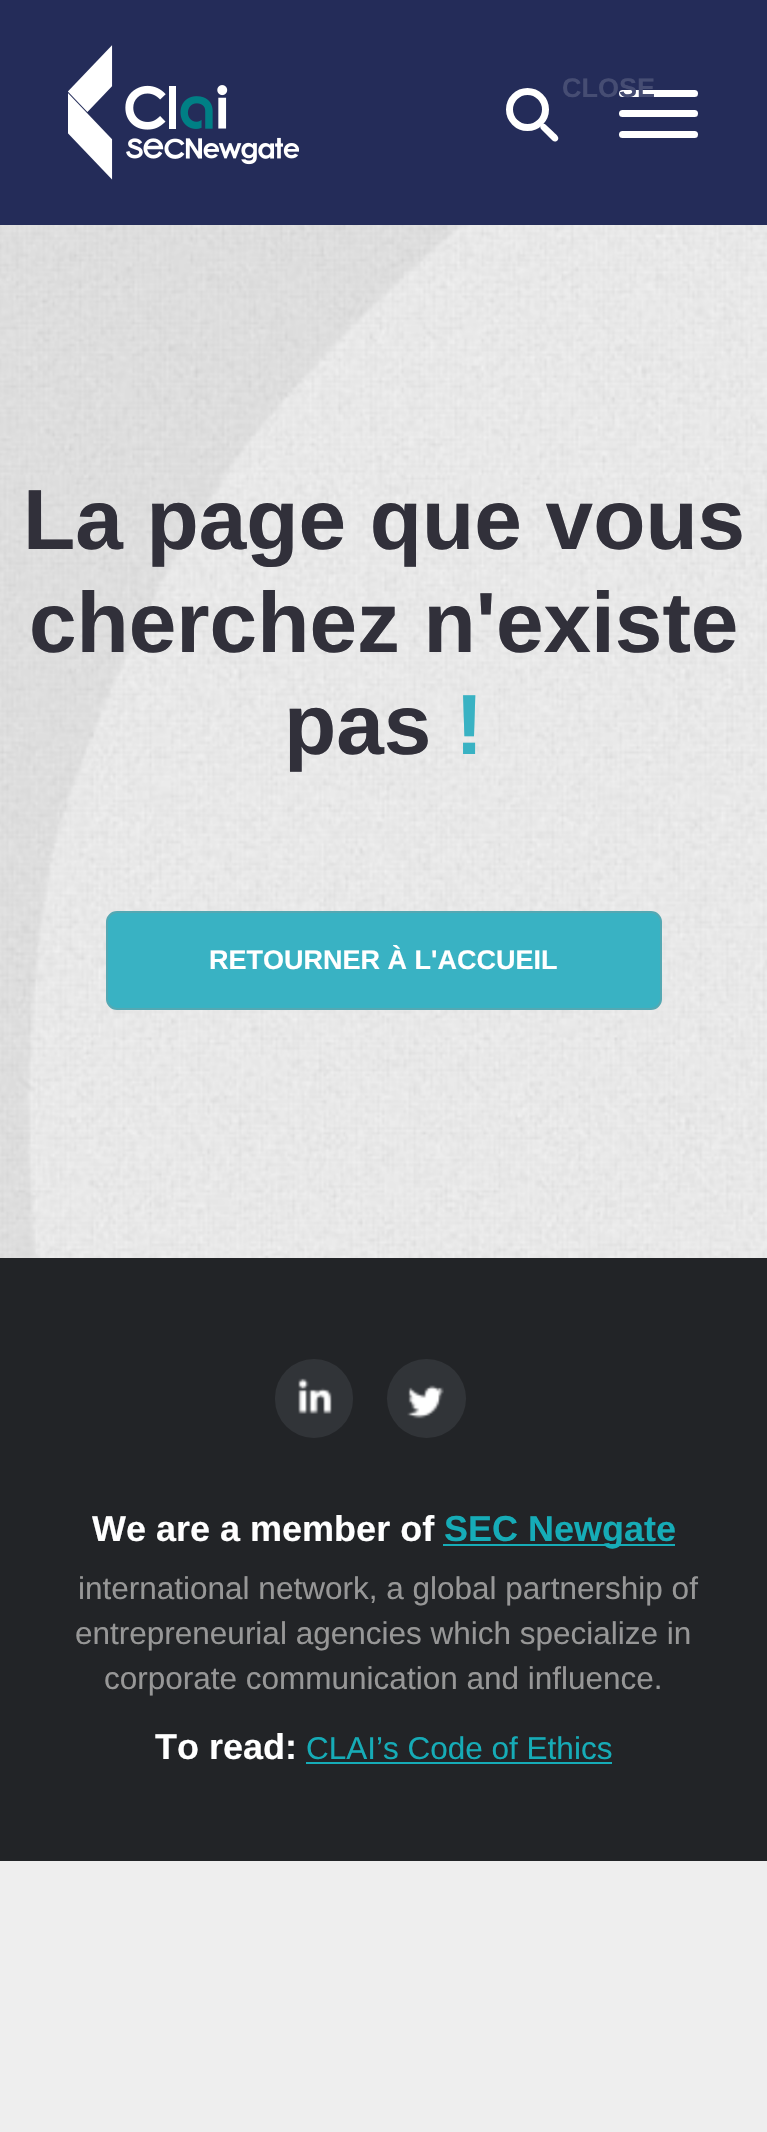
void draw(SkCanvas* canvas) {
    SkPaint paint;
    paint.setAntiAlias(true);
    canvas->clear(0xFFEEEEEE);
    paint.setColor(0xFF242C59);
    canvas->drawRect(SkRect::MakeXYWH(0, 0, 767, 225), paint);
    canvas->drawImageRect(SkImages::DeferredFromEncodedData(SkData::MakeFromFileName("img1.png")), SkRect::MakeXYWH(68, 45, 231, 135), SkSamplingOptions());
    paint.setStyle(SkPaint::kStroke_Style);
    paint.setStrokeWidth(7);
    paint.setColor(0xFFFFFFFF);
    canvas->drawCircle(527.5f, 109.5f, 18, paint);
    paint.setStyle(SkPaint::kFill_Style);
    canvas->drawPath(SkPathBuilder().moveTo(546, 125).lineTo(553.5f, 132).cubicTo(555, 133.5f, 557, 135, 558, 137).cubicTo(559.5f, 140.5f, 555, 143, 552.5f, 140.5f).lineTo(541, 129).cubicTo(538.5f, 125.5f, 543.5f, 122, 546, 125).close().detach(), paint);
    canvas->drawRoundRect(SkRect::MakeXYWH(619, 110, 79, 7), 3.5f, 3.5f, paint);
    canvas->drawRoundRect(SkRect::MakeXYWH(619, 90, 79, 7), 3.5f, 3.5f, paint);
    canvas->drawRoundRect(SkRect::MakeXYWH(619, 131, 79, 7), 3.5f, 3.5f, paint);
    SkFont font1(fontMgr->matchFamilyStyle("Liberation Sans", SkFontStyle::Bold()), 27);
    font1.setSubpixel(true);
    paint.setColor(0xFF464D73);
    canvas->drawString("CLOSE", 562, 97, font1, paint);
    canvas->drawImageRect(SkImages::DeferredFromEncodedData(SkData::MakeFromFileName("img2.png")), SkRect::MakeXYWH(0, 225, 767, 1033), SkSamplingOptions());
    SkFont font2(fontMgr->matchFamilyStyle("Liberation Sans", SkFontStyle::Bold()), 85.5f);
    font2.setSubpixel(true);
    paint.setColor(0xFF31303A);
    canvas->drawString("La page que vous", 23, 549, font2, paint);
    canvas->drawString("cherchez n'existe", 29, 652, font2, paint);
    canvas->drawString("pas", 284, 754, font2, paint);
    paint.setColor(0xFF39B2C3);
    canvas->drawString("!", 455, 754, font2, paint);
    canvas->drawRoundRect(SkRect::MakeXYWH(107, 912, 554, 97), 10, 10, paint);
    paint.setStyle(SkPaint::kStroke_Style);
    paint.setStrokeWidth(2);
    paint.setColor(0xFF54A8B3);
    canvas->drawRoundRect(SkRect::MakeXYWH(107, 912, 554, 97), 10, 10, paint);
    paint.setStyle(SkPaint::kFill_Style);
    paint.setColor(0xFFFFFFFF);
    canvas->drawString("RETOURNER À L'ACCUEIL", 209, 969, font1, paint);
    paint.setColor(0xFF222427);
    canvas->drawRect(SkRect::MakeXYWH(0, 1258, 767, 603), paint);
    paint.setColor(0xFF313438);
    canvas->drawRoundRect(SkRect::MakeXYWH(275, 1359, 78, 79), 39, 39, paint);
    canvas->drawImageRect(SkImages::DeferredFromEncodedData(SkData::MakeFromFileName("img3.png")), SkRect::MakeXYWH(298, 1378, 34, 36), SkSamplingOptions());
    canvas->drawCircle(426.5f, 1398.5f, 39.5f, paint);
    canvas->drawImageRect(SkImages::DeferredFromEncodedData(SkData::MakeFromFileName("img4.png")), SkRect::MakeXYWH(407, 1385, 37, 34), SkSamplingOptions());
    SkFont font3(fontMgr->matchFamilyStyle("Liberation Sans", SkFontStyle::Bold()), 36);
    font3.setSubpixel(true);
    paint.setColor(0xFFFFFFFF);
    canvas->drawString("We are a member of", 92, 1541, font3, paint);
    paint.setColor(0xFF16ACB7);
    canvas->drawRect(SkRect::MakeXYWH(443, 1544, 232, 2), paint);
    canvas->drawString("SEC Newgate", 444, 1541, font3, paint);
    SkFont font4(fontMgr->matchFamilyStyle("Liberation Sans", SkFontStyle::Normal()), 31.5f);
    font4.setSubpixel(true);
    paint.setColor(0xFF979797);
    canvas->drawString("international network, a global partnership of", 78, 1599, font4, paint);
    canvas->drawString("entrepreneurial agencies which specialize in", 75, 1644, font4, paint);
    canvas->drawString("corporate communication and influence.", 104, 1689, font4, paint);
    paint.setColor(0xFFFFFFFF);
    canvas->drawString("To read:", 155, 1759, font3, paint);
    paint.setColor(0xFF16ACB7);
    canvas->drawString("CLAI’s Code of Ethics", 306, 1759, font4, paint);
    canvas->drawRect(SkRect::MakeXYWH(306, 1762, 306, 2), paint);
}
